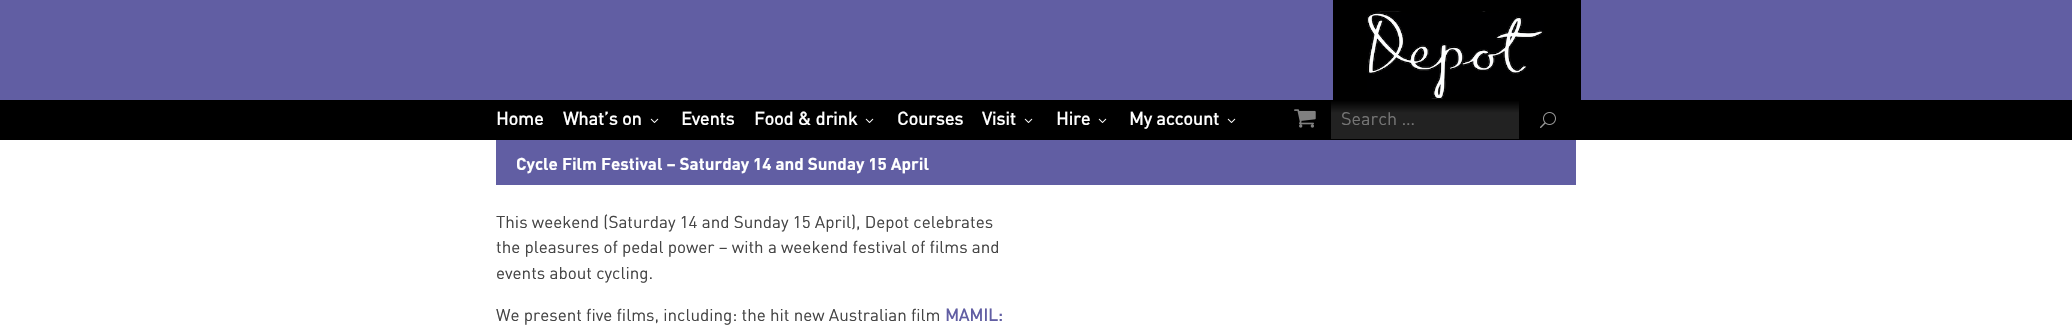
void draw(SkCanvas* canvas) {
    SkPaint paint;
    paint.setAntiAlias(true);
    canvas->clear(0xFFFFFFFF);
    paint.setColor(0xFF615EA3);
    canvas->drawRect(SkRect::MakeXYWH(0, 0, 2072, 100), paint);
    paint.setColor(0xFF000000);
    canvas->drawRect(SkRect::MakeXYWH(1333, 0, 248, 100), paint);
    canvas->drawImageRect(SkImages::DeferredFromEncodedData(SkData::MakeFromFileName("img1.png")), SkRect::MakeXYWH(1367, 11, 177, 88), SkSamplingOptions());
    canvas->drawRect(SkRect::MakeXYWH(0, 100, 2072, 40), paint);
    SkFont font1(fontMgr->matchFamilyStyle("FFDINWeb", SkFontStyle::Bold()), 18);
    font1.setSubpixel(true);
    paint.setColor(0xFFFFFFFF);
    canvas->drawString("Home", 496, 125, font1, paint);
    canvas->drawString("What’s on", 563, 125, font1, paint);
    canvas->drawImageRect(SkImages::DeferredFromEncodedData(SkData::MakeFromFileName("img2.png")), SkRect::MakeXYWH(650, 118, 9, 5), SkSamplingOptions());
    canvas->drawString("Events", 681, 125, font1, paint);
    canvas->drawString("Food & drink", 754, 125, font1, paint);
    canvas->drawImageRect(SkImages::DeferredFromEncodedData(SkData::MakeFromFileName("img2.png")), SkRect::MakeXYWH(865, 118, 9, 5), SkSamplingOptions());
    canvas->drawString("Courses", 897, 125, font1, paint);
    canvas->drawString("Visit", 982, 125, font1, paint);
    canvas->drawImageRect(SkImages::DeferredFromEncodedData(SkData::MakeFromFileName("img2.png")), SkRect::MakeXYWH(1024, 118, 9, 5), SkSamplingOptions());
    canvas->drawString("Hire", 1056, 125, font1, paint);
    canvas->drawImageRect(SkImages::DeferredFromEncodedData(SkData::MakeFromFileName("img2.png")), SkRect::MakeXYWH(1098, 118, 9, 5), SkSamplingOptions());
    canvas->drawString("My account", 1129, 125, font1, paint);
    canvas->drawImageRect(SkImages::DeferredFromEncodedData(SkData::MakeFromFileName("img2.png")), SkRect::MakeXYWH(1227, 118, 9, 5), SkSamplingOptions());
    canvas->drawImageRect(SkImages::DeferredFromEncodedData(SkData::MakeFromFileName("img3.png")), SkRect::MakeXYWH(1294, 109, 22, 19), SkSamplingOptions());
    {
        const SkColor colors[] = {0xFF000000, 0xFF222222};
        const float stops[] = {0.01f, 0.33f};
        const SkPoint ends[] = {{1425, 100}, {1425, 139}};
        paint.setShader(SkGradientShader::MakeLinear(ends, colors, stops, 2, SkTileMode::kClamp));
        paint.setAlpha(255);
    }
    canvas->drawRect(SkRect::MakeXYWH(1331, 101, 188, 38), paint);
    SkFont font2(fontMgr->matchFamilyStyle("FFDINWeb", SkFontStyle::Normal()), 18);
    font2.setSubpixel(true);
    paint.setShader(nullptr);
    paint.setColor(0xFF757575);
    canvas->drawString("Search …", 1341, 125, font2, paint);
    canvas->drawImageRect(SkImages::DeferredFromEncodedData(SkData::MakeFromFileName("img4.png")), SkRect::MakeXYWH(1540, 112, 16, 16), SkSamplingOptions());
    paint.setColor(0xFF615EA3);
    canvas->drawRect(SkRect::MakeXYWH(496, 140, 1080, 45), paint);
    SkFont font3(fontMgr->matchFamilyStyle("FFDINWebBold", SkFontStyle::Normal()), 17);
    font3.setSubpixel(true);
    paint.setColor(0xFFFFFFFF);
    canvas->drawString("Cycle Film Festival – Saturday 14 and Sunday 15 April", 516, 170, font3, paint);
    SkFont font4(fontMgr->matchFamilyStyle("FFDINWeb", SkFontStyle::Normal()), 17);
    font4.setSubpixel(true);
    paint.setColor(0xFF444444);
    canvas->drawString("This weekend (Saturday 14 and Sunday 15 April), Depot celebrates", 496, 228, font4, paint);
    canvas->drawString("the pleasures of pedal power – with a weekend festival of films and", 496, 253, font4, paint);
    canvas->drawString("events about cycling.", 496, 279, font4, paint);
    canvas->drawString("We present five films, including: the hit new Australian film", 496, 321, font4, paint);
    SkFont font5(fontMgr->matchFamilyStyle("FFDINWeb", SkFontStyle::Bold()), 17);
    font5.setSubpixel(true);
    paint.setColor(0xFF615EA3);
    canvas->drawString("MAMIL:", 945, 321, font5, paint);
}
